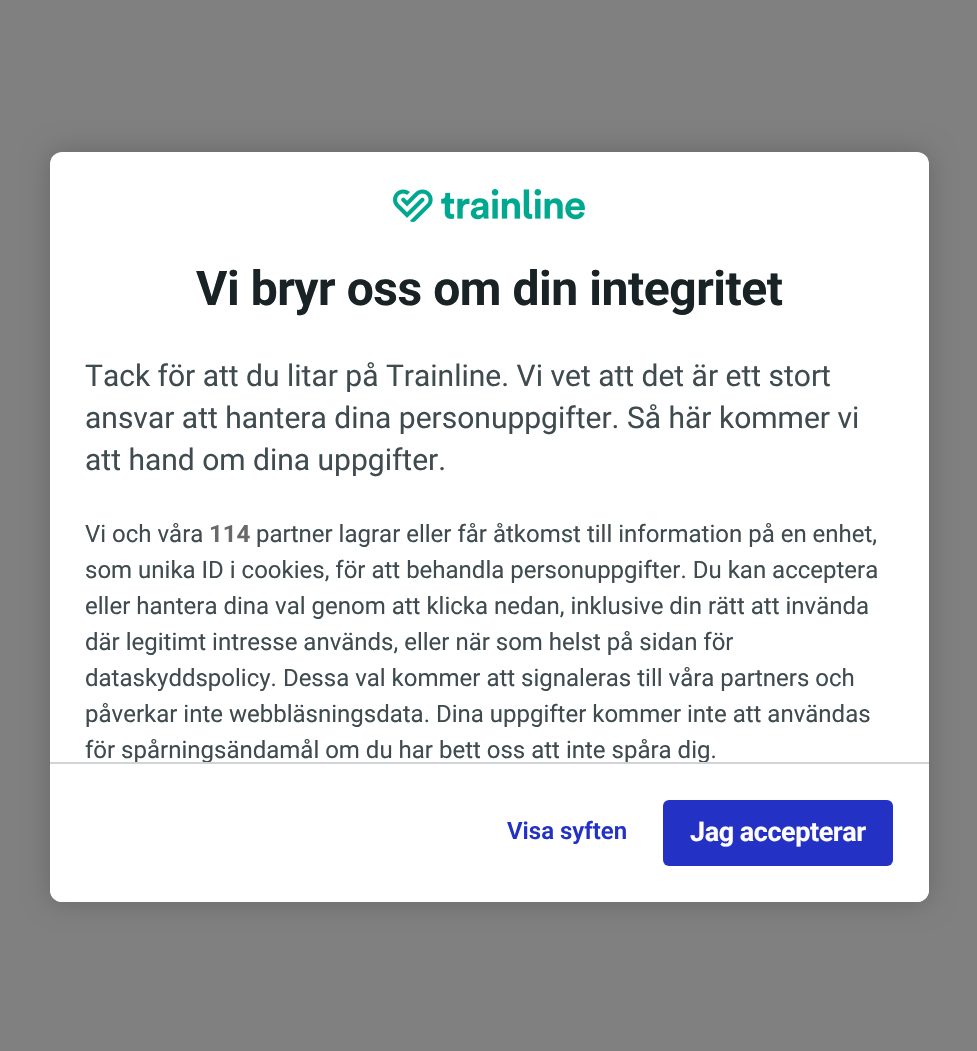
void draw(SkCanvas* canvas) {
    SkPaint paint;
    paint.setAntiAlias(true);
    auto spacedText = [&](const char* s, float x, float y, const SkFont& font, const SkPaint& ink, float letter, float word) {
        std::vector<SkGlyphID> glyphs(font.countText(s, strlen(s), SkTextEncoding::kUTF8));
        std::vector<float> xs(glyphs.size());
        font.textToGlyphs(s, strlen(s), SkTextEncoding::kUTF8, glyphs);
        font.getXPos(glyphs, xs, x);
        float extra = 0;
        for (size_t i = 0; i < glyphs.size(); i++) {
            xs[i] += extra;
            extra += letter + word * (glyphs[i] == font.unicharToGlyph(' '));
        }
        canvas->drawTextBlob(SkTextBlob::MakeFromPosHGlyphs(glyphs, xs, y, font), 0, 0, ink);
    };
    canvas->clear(0xFF808080);
    paint.setColor(0x33000000);
    paint.setMaskFilter(SkMaskFilter::MakeBlur(kNormal_SkBlurStyle, 13.5f));
    canvas->drawRoundRect(SkRect::MakeXYWH(50, 152, 879, 750), 12, 12, paint);
    paint.setMaskFilter(nullptr);
    paint.setColor(0xFFFFFFFF);
    canvas->drawRoundRect(SkRect::MakeXYWH(50, 152, 879, 750), 12, 12, paint);
    canvas->drawImageRect(SkImages::DeferredFromEncodedData(SkData::MakeFromFileName("img1.png")), SkRect::MakeXYWH(393, 189, 192, 33), SkSamplingOptions());
    SkFont font1(fontMgr->matchFamilyStyle("Roboto", SkFontStyle::Bold()), 48);
    font1.setSubpixel(true);
    paint.setColor(0xFF192325);
    spacedText("Vi bryr oss om din integritet", 196, 305, font1, paint, -0.45f, 0);
    SkFont font2(fontMgr->matchFamilyStyle("Roboto", SkFontStyle::Normal()), 30);
    font2.setSubpixel(true);
    paint.setColor(0xFF3F4B4E);
    canvas->drawString("Tack för att du litar på Trainline. Vi vet att det är ett stort", 85, 386, font2, paint);
    canvas->drawString("ansvar att hantera dina personuppgifter. Så här kommer vi", 85, 428, font2, paint);
    canvas->drawString("att hand om dina uppgifter.", 85, 470, font2, paint);
    SkFont font3(fontMgr->matchFamilyStyle("Roboto", SkFontStyle::Normal()), 24);
    font3.setSubpixel(true);
    canvas->drawString("Vi och våra", 85, 542, font3, paint);
    SkFont font4(fontMgr->matchFamilyStyle("Roboto", SkFontStyle::Bold()), 24);
    font4.setSubpixel(true);
    paint.setColor(0xFF696969);
    canvas->drawString("114", 209, 542, font4, paint);
    paint.setColor(0xFF3F4B4E);
    canvas->drawString("partner lagrar eller får åtkomst till information på en enhet,", 256, 542, font3, paint);
    canvas->drawString("som unika ID i cookies, för att behandla personuppgifter. Du kan acceptera", 85, 578, font3, paint);
    canvas->drawString("eller hantera dina val genom att klicka nedan, inklusive din rätt att invända", 85, 614, font3, paint);
    canvas->drawString("där legitimt intresse används, eller när som helst på sidan för", 85, 650, font3, paint);
    canvas->drawString("dataskyddspolicy. Dessa val kommer att signaleras till våra partners och", 85, 686, font3, paint);
    canvas->drawString("påverkar inte webbläsningsdata. Dina uppgifter kommer inte att användas", 85, 722, font3, paint);
    canvas->drawString("för spårningsändamål om du har bett oss att inte spåra dig.", 85, 758, font3, paint);
    paint.setColor(0xFFFFFFFF);
    canvas->drawPath(SkPathBuilder().moveTo(50, 762).lineTo(929, 762).lineTo(929, 890).cubicTo(929, 896.5f, 923.5f, 902, 917, 902).lineTo(62, 902).cubicTo(55.5f, 902, 50, 896.5f, 50, 890).close().detach(), paint);
    paint.setColor(0xFFD0D4D5);
    canvas->drawRect(SkRect::MakeXYWH(50, 762, 879, 2), paint);
    SkFont font5(fontMgr->matchFamilyStyle("Roboto", SkFontStyle(600, SkFontStyle::kNormal_Width, SkFontStyle::kUpright_Slant)), 24);
    font5.setSubpixel(true);
    paint.setColor(0xFF2332C4);
    canvas->drawString("Visa syften", 507, 839, font5, paint);
    canvas->drawRoundRect(SkRect::MakeXYWH(663, 800, 230, 66), 6, 6, paint);
    SkFont font6(fontMgr->matchFamilyStyle("Roboto", SkFontStyle::Bold()), 27);
    font6.setSubpixel(true);
    paint.setColor(0xFFFEFBFB);
    spacedText("Jag accepterar", 690, 841, font6, paint, -0.45f, 0);
}
